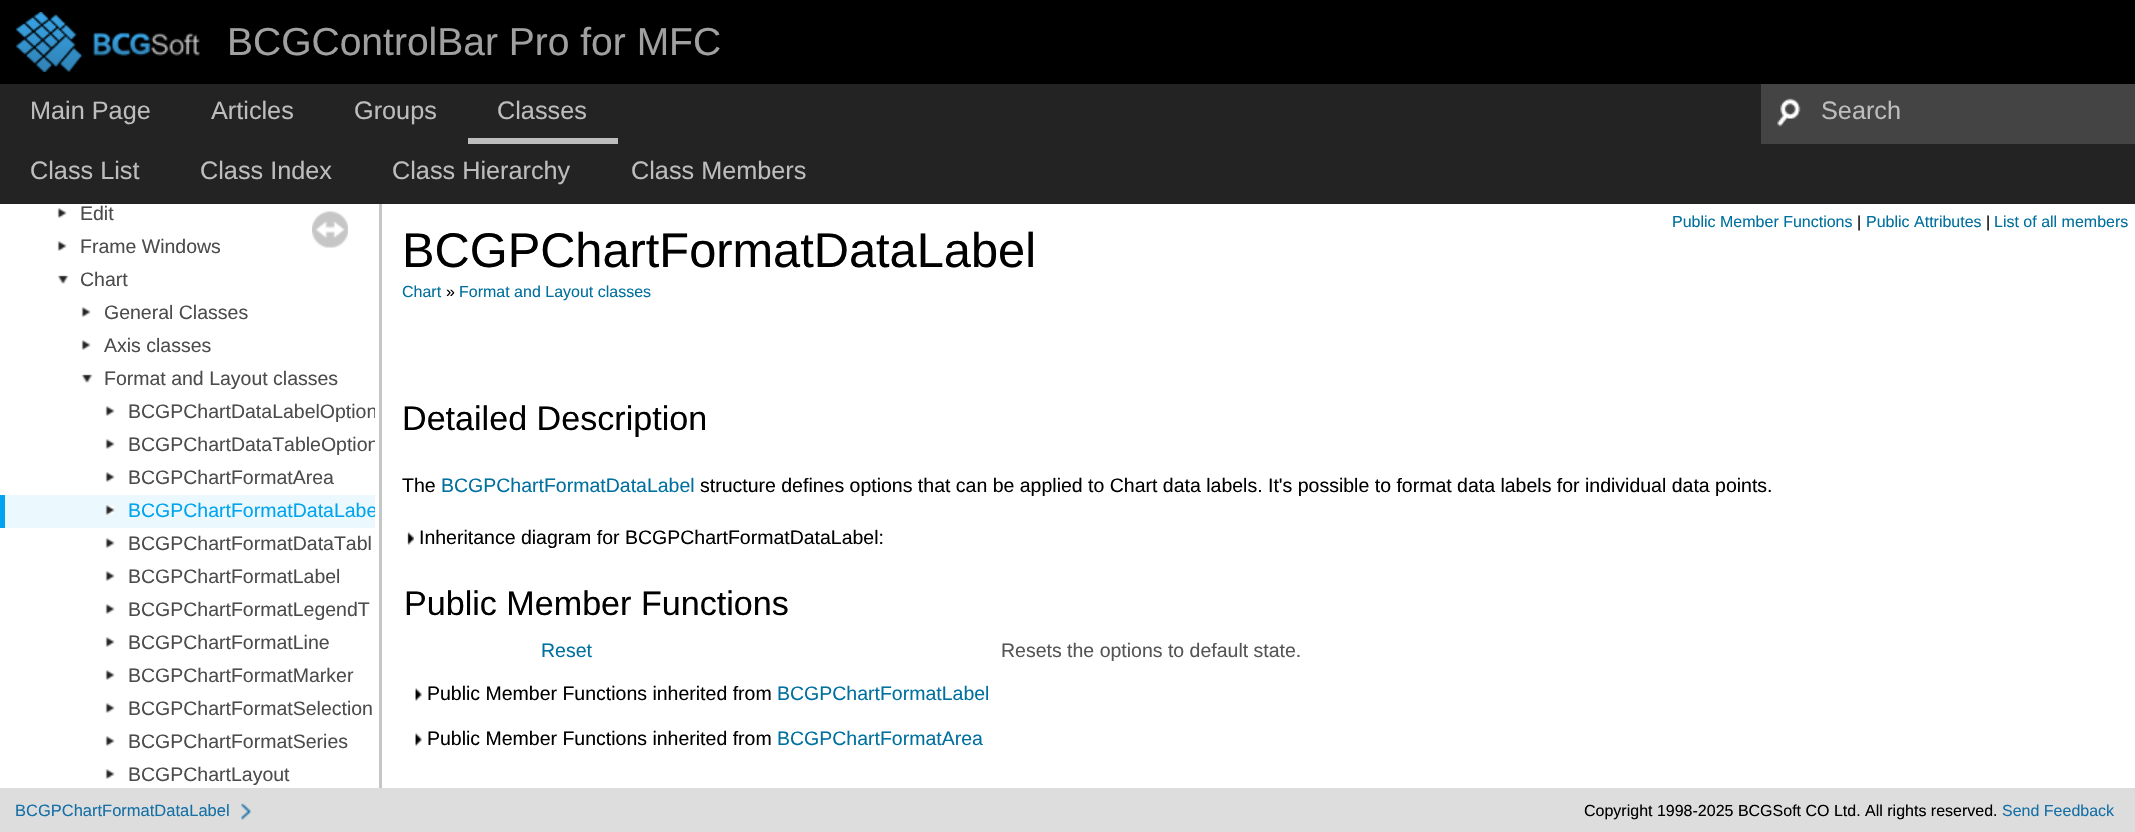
void draw(SkCanvas* canvas) {
    SkPaint paint;
    paint.setAntiAlias(true);
    canvas->clear(0xFFFFFFFF);
    paint.setColor(0xFF000000);
    canvas->drawRect(SkRect::MakeXYWH(0, 0, 2135, 84), paint);
    canvas->drawImageRect(SkImages::DeferredFromEncodedData(SkData::MakeFromFileName("img1.png")), SkRect::MakeXYWH(16, 12, 184, 60), SkSamplingOptions());
    SkFont font1(fontMgr->matchFamilyStyle("Liberation Sans", SkFontStyle::Normal()), 39);
    font1.setSubpixel(true);
    paint.setColor(0xFFA0A0A0);
    canvas->drawString("BCGControlBar Pro for MFC", 227, 55, font1, paint);
    paint.setColor(0xFF232323);
    canvas->drawRect(SkRect::MakeXYWH(0, 84, 1761, 60), paint);
    SkFont font2(fontMgr->matchFamilyStyle("Liberation Sans", SkFontStyle::Normal()), 25.25f);
    font2.setSubpixel(true);
    paint.setColor(0xFFBDBDBD);
    canvas->drawString("Main Page", 30, 119, font2, paint);
    canvas->drawString("Articles", 211, 119, font2, paint);
    canvas->drawString("Groups", 354, 119, font2, paint);
    canvas->drawRect(SkRect::MakeXYWH(468, 138, 150, 6), paint);
    canvas->drawString("Classes", 497, 119, font2, paint);
    paint.setColor(0xFF444444);
    canvas->drawRect(SkRect::MakeXYWH(1761, 84, 374, 60), paint);
    canvas->drawImageRect(SkImages::DeferredFromEncodedData(SkData::MakeFromFileName("img2.png")), SkRect::MakeXYWH(1777, 98, 24, 29), SkSamplingOptions());
    paint.setColor(0xFFBDBDBD);
    canvas->drawString("Search", 1821, 119, font2, paint);
    paint.setColor(0xFF232323);
    canvas->drawRect(SkRect::MakeXYWH(0, 144, 2135, 60), paint);
    paint.setColor(0xFFBDBDBD);
    canvas->drawString("Class List", 30, 179, font2, paint);
    canvas->drawString("Class Index", 200, 179, font2, paint);
    canvas->drawString("Class Hierarchy", 392, 179, font2, paint);
    canvas->drawString("Class Members", 631, 179, font2, paint);
    canvas->drawImageRect(SkImages::DeferredFromEncodedData(SkData::MakeFromFileName("img3.png")), SkRect::MakeXYWH(57, 208, 10, 10), SkSamplingOptions());
    SkFont font3(fontMgr->matchFamilyStyle("Liberation Sans", SkFontStyle::Normal()), 19.5f);
    font3.setSubpixel(true);
    paint.setColor(0xFF4C4C4C);
    canvas->drawString("Edit", 80, 220, font3, paint);
    canvas->drawImageRect(SkImages::DeferredFromEncodedData(SkData::MakeFromFileName("img3.png")), SkRect::MakeXYWH(57, 241, 10, 10), SkSamplingOptions());
    canvas->drawString("Frame Windows", 80, 253, font3, paint);
    canvas->drawImageRect(SkImages::DeferredFromEncodedData(SkData::MakeFromFileName("img4.png")), SkRect::MakeXYWH(57, 275, 12, 9), SkSamplingOptions());
    canvas->drawString("Chart", 80, 286, font3, paint);
    canvas->drawImageRect(SkImages::DeferredFromEncodedData(SkData::MakeFromFileName("img3.png")), SkRect::MakeXYWH(81, 307, 10, 10), SkSamplingOptions());
    canvas->drawString("General Classes", 104, 319, font3, paint);
    canvas->drawImageRect(SkImages::DeferredFromEncodedData(SkData::MakeFromFileName("img3.png")), SkRect::MakeXYWH(81, 340, 10, 10), SkSamplingOptions());
    canvas->drawString("Axis classes", 104, 352, font3, paint);
    canvas->drawImageRect(SkImages::DeferredFromEncodedData(SkData::MakeFromFileName("img4.png")), SkRect::MakeXYWH(81, 374, 12, 9), SkSamplingOptions());
    canvas->drawString("Format and Layout classes", 104, 385, font3, paint);
    canvas->drawImageRect(SkImages::DeferredFromEncodedData(SkData::MakeFromFileName("img3.png")), SkRect::MakeXYWH(105, 406, 10, 10), SkSamplingOptions());
    canvas->save();
    canvas->clipRect(SkRect::MakeXYWH(0, 204, 375, 584));
    canvas->drawString("BCGPChartDataLabelOption", 128, 418, font3, paint);
    canvas->restore();
    canvas->drawImageRect(SkImages::DeferredFromEncodedData(SkData::MakeFromFileName("img3.png")), SkRect::MakeXYWH(105, 439, 10, 10), SkSamplingOptions());
    canvas->save();
    canvas->clipRect(SkRect::MakeXYWH(0, 204, 375, 584));
    canvas->drawString("BCGPChartDataTableOption", 128, 451, font3, paint);
    canvas->restore();
    canvas->drawImageRect(SkImages::DeferredFromEncodedData(SkData::MakeFromFileName("img3.png")), SkRect::MakeXYWH(105, 472, 10, 10), SkSamplingOptions());
    canvas->drawString("BCGPChartFormatArea", 128, 484, font3, paint);
    paint.setColor(0xFFEBF8FE);
    canvas->drawRect(SkRect::MakeXYWH(5, 495, 370, 33), paint);
    paint.setColor(0xFF00A4EF);
    canvas->drawRect(SkRect::MakeXYWH(0, 495, 5, 33), paint);
    canvas->drawImageRect(SkImages::DeferredFromEncodedData(SkData::MakeFromFileName("img5.png")), SkRect::MakeXYWH(105, 505, 10, 10), SkSamplingOptions());
    canvas->save();
    canvas->clipRect(SkRect::MakeXYWH(0, 204, 375, 584));
    canvas->drawString("BCGPChartFormatDataLabe", 128, 517, font3, paint);
    canvas->restore();
    canvas->drawImageRect(SkImages::DeferredFromEncodedData(SkData::MakeFromFileName("img3.png")), SkRect::MakeXYWH(105, 538, 10, 10), SkSamplingOptions());
    paint.setColor(0xFF4C4C4C);
    canvas->drawString("BCGPChartFormatDataTabl", 128, 550, font3, paint);
    canvas->drawImageRect(SkImages::DeferredFromEncodedData(SkData::MakeFromFileName("img3.png")), SkRect::MakeXYWH(105, 571, 10, 10), SkSamplingOptions());
    canvas->drawString("BCGPChartFormatLabel", 128, 583, font3, paint);
    canvas->drawImageRect(SkImages::DeferredFromEncodedData(SkData::MakeFromFileName("img3.png")), SkRect::MakeXYWH(105, 604, 10, 10), SkSamplingOptions());
    canvas->drawString("BCGPChartFormatLegendT", 128, 616, font3, paint);
    canvas->drawImageRect(SkImages::DeferredFromEncodedData(SkData::MakeFromFileName("img3.png")), SkRect::MakeXYWH(105, 637, 10, 10), SkSamplingOptions());
    canvas->drawString("BCGPChartFormatLine", 128, 649, font3, paint);
    canvas->drawImageRect(SkImages::DeferredFromEncodedData(SkData::MakeFromFileName("img3.png")), SkRect::MakeXYWH(105, 670, 10, 10), SkSamplingOptions());
    canvas->drawString("BCGPChartFormatMarker", 128, 682, font3, paint);
    canvas->drawImageRect(SkImages::DeferredFromEncodedData(SkData::MakeFromFileName("img3.png")), SkRect::MakeXYWH(105, 703, 10, 10), SkSamplingOptions());
    canvas->drawString("BCGPChartFormatSelection", 128, 715, font3, paint);
    canvas->drawImageRect(SkImages::DeferredFromEncodedData(SkData::MakeFromFileName("img3.png")), SkRect::MakeXYWH(105, 736, 10, 10), SkSamplingOptions());
    canvas->drawString("BCGPChartFormatSeries", 128, 748, font3, paint);
    canvas->drawImageRect(SkImages::DeferredFromEncodedData(SkData::MakeFromFileName("img3.png")), SkRect::MakeXYWH(105, 769, 10, 10), SkSamplingOptions());
    canvas->drawString("BCGPChartLayout", 128, 781, font3, paint);
    canvas->drawImageRect(SkImages::DeferredFromEncodedData(SkData::MakeFromFileName("img6.png")), SkRect::MakeXYWH(312, 211, 36, 37), SkSamplingOptions());
    paint.setColor(0xFFC6C6C6);
    canvas->drawRect(SkRect::MakeXYWH(379, 204, 3, 584), paint);
    SkFont font4(fontMgr->matchFamilyStyle("Liberation Sans", SkFontStyle::Normal()), 16);
    font4.setSubpixel(true);
    paint.setColor(0xFF00709F);
    canvas->drawString("Public Member Functions", 1672, 227, font4, paint);
    paint.setColor(0xFF000000);
    canvas->drawString("|", 1857, 227, font4, paint);
    paint.setColor(0xFF00709F);
    canvas->drawString("Public Attributes", 1866, 227, font4, paint);
    paint.setColor(0xFF000000);
    canvas->drawString("|", 1986, 227, font4, paint);
    paint.setColor(0xFF00709F);
    canvas->drawString("List of all members", 1994, 227, font4, paint);
    SkFont font5(fontMgr->matchFamilyStyle("Liberation Sans", SkFontStyle::Normal()), 48.75f);
    font5.setSubpixel(true);
    paint.setColor(0xFF000000);
    canvas->drawString("BCGPChartFormatDataLabel", 402, 267, font5, paint);
    paint.setColor(0xFF00709F);
    canvas->drawString("Chart", 402, 297, font4, paint);
    paint.setColor(0xFF000000);
    canvas->drawString("»", 446, 297, font4, paint);
    paint.setColor(0xFF00709F);
    canvas->drawString("Format and Layout classes", 459, 297, font4, paint);
    SkFont font6(fontMgr->matchFamilyStyle("Liberation Sans", SkFontStyle::Normal()), 34.1f);
    font6.setSubpixel(true);
    paint.setColor(0xFF000000);
    canvas->drawString("Detailed Description", 402, 430, font6, paint);
    canvas->drawString("The", 402, 492, font3, paint);
    paint.setColor(0xFF00709F);
    canvas->drawString("BCGPChartFormatDataLabel", 441, 492, font3, paint);
    paint.setColor(0xFF000000);
    canvas->drawString("structure defines options that can be applied to Chart data labels. It's possible to format data labels for individual data points.", 700, 492, font3, paint);
    canvas->drawImageRect(SkImages::DeferredFromEncodedData(SkData::MakeFromFileName("img7.png")), SkRect::MakeXYWH(407, 532, 7, 13), SkSamplingOptions());
    canvas->drawString("Inheritance diagram for BCGPChartFormatDataLabel:", 419, 544, font3, paint);
    canvas->drawString("Public Member Functions", 404, 615, font6, paint);
    paint.setColor(0xFF00709F);
    canvas->drawString("Reset", 541, 657, font3, paint);
    paint.setColor(0xFF555555);
    canvas->drawString("Resets the options to default state.", 1001, 657, font3, paint);
    canvas->drawImageRect(SkImages::DeferredFromEncodedData(SkData::MakeFromFileName("img8.png")), SkRect::MakeXYWH(415, 688, 7, 13), SkSamplingOptions());
    paint.setColor(0xFF000000);
    canvas->drawString("Public Member Functions inherited from", 427, 700, font3, paint);
    paint.setColor(0xFF00709F);
    canvas->drawString("BCGPChartFormatLabel", 777, 700, font3, paint);
    canvas->drawImageRect(SkImages::DeferredFromEncodedData(SkData::MakeFromFileName("img8.png")), SkRect::MakeXYWH(415, 733, 7, 13), SkSamplingOptions());
    paint.setColor(0xFF000000);
    canvas->drawString("Public Member Functions inherited from", 427, 745, font3, paint);
    paint.setColor(0xFF00709F);
    canvas->drawString("BCGPChartFormatArea", 777, 745, font3, paint);
    paint.setColor(0xFFDDDDDD);
    canvas->drawRect(SkRect::MakeXYWH(0, 788, 2135, 44), paint);
    canvas->drawImageRect(SkImages::DeferredFromEncodedData(SkData::MakeFromFileName("img9.png")), SkRect::MakeXYWH(241, 803, 10, 17), SkSamplingOptions());
    SkFont font7(fontMgr->matchFamilyStyle("Liberation Sans", SkFontStyle::Normal()), 16.5f);
    font7.setSubpixel(true);
    paint.setColor(0xFF1570A6);
    canvas->drawString("BCGPChartFormatDataLabel", 15, 816, font7, paint);
    paint.setColor(0xFF000000);
    canvas->drawString("Copyright 1998-2025 BCGSoft CO Ltd. All rights reserved.", 1584, 816, font4, paint);
    paint.setColor(0xFF1570A6);
    canvas->drawString("Send Feedback", 2002, 816, font4, paint);
}
